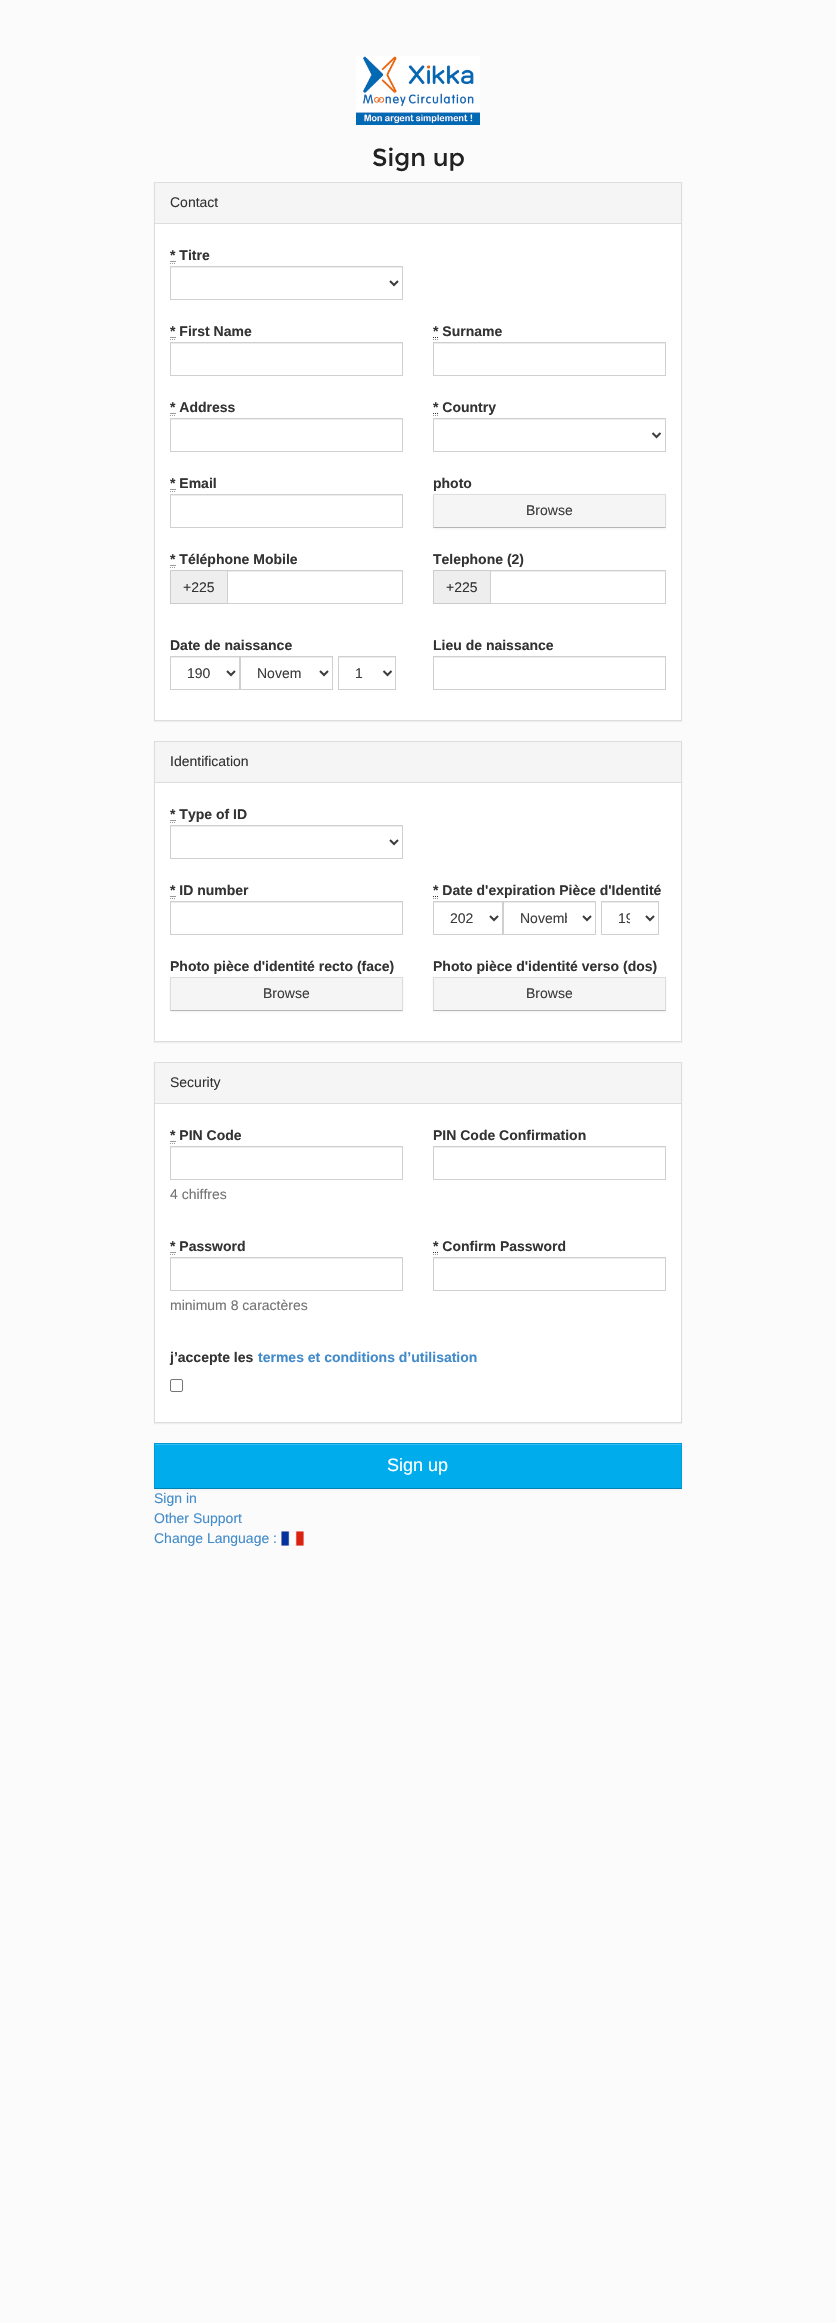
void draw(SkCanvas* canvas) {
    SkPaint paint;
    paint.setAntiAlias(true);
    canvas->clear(0xFFFBFBFB);
    canvas->drawImageRect(SkImages::DeferredFromEncodedData(SkData::MakeFromFileName("img1.png")), SkRect::MakeXYWH(356, 56, 124, 69), SkSamplingOptions());
    SkFont font1(fontMgr->matchFamilyStyle("Montserrat", SkFontStyle::Normal()), 24.5f);
    font1.setSubpixel(true);
    paint.setColor(0xFF222222);
    canvas->drawString("Sign up", 372, 166, font1, paint);
    paint.setColor(0x0D000000);
    paint.setMaskFilter(SkMaskFilter::MakeBlur(kNormal_SkBlurStyle, 0.5f));
    canvas->drawRect(SkRect::MakeXYWH(154, 183, 528, 539), paint);
    paint.setMaskFilter(nullptr);
    paint.setColor(0xFFFFFFFF);
    canvas->drawRect(SkRect::MakeXYWH(155, 224, 526, 496), paint);
    paint.setStyle(SkPaint::kStroke_Style);
    paint.setStrokeWidth(1);
    paint.setColor(0xFFDDDDDD);
    canvas->drawRect(SkRect::MakeXYWH(154.5f, 182.5f, 527, 538), paint);
    paint.setStyle(SkPaint::kFill_Style);
    paint.setColor(0xFFF5F5F5);
    canvas->drawRect(SkRect::MakeXYWH(155, 183, 526, 40), paint);
    paint.setColor(0xFFDDDDDD);
    canvas->drawRect(SkRect::MakeXYWH(155, 223, 526, 1), paint);
    SkFont font2(fontMgr->matchFamilyStyle("Liberation Sans", SkFontStyle::Normal()), 14);
    font2.setSubpixel(true);
    paint.setColor(0xFF333333);
    canvas->drawString("Contact", 170, 207, font2, paint);
    SkFont font3(fontMgr->matchFamilyStyle("Liberation Sans", SkFontStyle::Bold()), 14);
    font3.setSubpixel(true);
    canvas->drawString("* Titre", 170, 260, font3, paint);
    paint.setStyle(SkPaint::kStroke_Style);
    paint.setColor(0xFF999999);
    canvas->drawPath(SkPathBuilder().moveTo(170, 263.5f).lineTo(171, 263.5f).moveTo(172, 263.5f).lineTo(173, 263.5f).moveTo(174, 263.5f).lineTo(175, 263.5f).detach(), paint);
    paint.setColor(0xFF333333);
    canvas->drawPath(SkPathBuilder().moveTo(170.5f, 261.5f).lineTo(171.5f, 261.5f).moveTo(172.5f, 261.5f).lineTo(173.5f, 261.5f).moveTo(174.5f, 261.5f).lineTo(175.5f, 261.5f).detach(), paint);
    paint.setStyle(SkPaint::kFill_Style);
    paint.setColor(0xFFECECEC);
    canvas->drawRect(SkRect::MakeXYWH(171, 267, 231, 1), paint);
    paint.setStyle(SkPaint::kStroke_Style);
    paint.setColor(0xFFD0D0D0);
    canvas->drawRect(SkRect::MakeXYWH(170.5f, 266.5f, 232, 33), paint);
    paint.setStrokeWidth(2);
    paint.setColor(0xFF3C3C3C);
    canvas->drawPath(SkPathBuilder().moveTo(390, 281).lineTo(394, 285).lineTo(398, 281).detach(), paint);
    paint.setStyle(SkPaint::kFill_Style);
    paint.setColor(0xFF333333);
    canvas->drawString("* First Name", 170, 336, font3, paint);
    paint.setStyle(SkPaint::kStroke_Style);
    paint.setStrokeWidth(1);
    paint.setColor(0xFF999999);
    canvas->drawPath(SkPathBuilder().moveTo(170, 339.5f).lineTo(171, 339.5f).moveTo(172, 339.5f).lineTo(173, 339.5f).moveTo(174, 339.5f).lineTo(175, 339.5f).detach(), paint);
    paint.setColor(0xFF333333);
    canvas->drawPath(SkPathBuilder().moveTo(170.5f, 337.5f).lineTo(171.5f, 337.5f).moveTo(172.5f, 337.5f).lineTo(173.5f, 337.5f).moveTo(174.5f, 337.5f).lineTo(175.5f, 337.5f).detach(), paint);
    paint.setStyle(SkPaint::kFill_Style);
    paint.setColor(0xFFECECEC);
    canvas->drawRect(SkRect::MakeXYWH(171, 343, 231, 1), paint);
    paint.setStyle(SkPaint::kStroke_Style);
    paint.setColor(0xFFD0D0D0);
    canvas->drawRect(SkRect::MakeXYWH(170.5f, 342.5f, 232, 33), paint);
    paint.setStyle(SkPaint::kFill_Style);
    paint.setColor(0xFF333333);
    canvas->drawString("* Surname", 433, 336, font3, paint);
    paint.setStyle(SkPaint::kStroke_Style);
    paint.setColor(0xFF999999);
    canvas->drawPath(SkPathBuilder().moveTo(433, 339.5f).lineTo(434, 339.5f).moveTo(435, 339.5f).lineTo(436, 339.5f).moveTo(437, 339.5f).lineTo(438, 339.5f).detach(), paint);
    paint.setColor(0xFF333333);
    canvas->drawPath(SkPathBuilder().moveTo(433, 337.5f).lineTo(434, 337.5f).moveTo(435, 337.5f).lineTo(436, 337.5f).moveTo(437, 337.5f).lineTo(438, 337.5f).detach(), paint);
    paint.setStyle(SkPaint::kFill_Style);
    paint.setColor(0xFFECECEC);
    canvas->drawRect(SkRect::MakeXYWH(434, 343, 231, 1), paint);
    paint.setStyle(SkPaint::kStroke_Style);
    paint.setColor(0xFFD0D0D0);
    canvas->drawRect(SkRect::MakeXYWH(433.5f, 342.5f, 232, 33), paint);
    paint.setStyle(SkPaint::kFill_Style);
    paint.setColor(0xFF333333);
    canvas->drawString("* Address", 170, 412, font3, paint);
    paint.setStyle(SkPaint::kStroke_Style);
    paint.setColor(0xFF999999);
    canvas->drawPath(SkPathBuilder().moveTo(170, 415.5f).lineTo(171, 415.5f).moveTo(172, 415.5f).lineTo(173, 415.5f).moveTo(174, 415.5f).lineTo(175, 415.5f).detach(), paint);
    paint.setColor(0xFF333333);
    canvas->drawPath(SkPathBuilder().moveTo(170.5f, 413.5f).lineTo(171.5f, 413.5f).moveTo(172.5f, 413.5f).lineTo(173.5f, 413.5f).moveTo(174.5f, 413.5f).lineTo(175.5f, 413.5f).detach(), paint);
    paint.setStyle(SkPaint::kFill_Style);
    paint.setColor(0xFFECECEC);
    canvas->drawRect(SkRect::MakeXYWH(171, 419, 231, 1), paint);
    paint.setStyle(SkPaint::kStroke_Style);
    paint.setColor(0xFFD0D0D0);
    canvas->drawRect(SkRect::MakeXYWH(170.5f, 418.5f, 232, 33), paint);
    paint.setColor(0xFF333333);
    canvas->drawPath(SkPathBuilder().moveTo(433, 413.5f).lineTo(434, 413.5f).moveTo(435, 413.5f).lineTo(436, 413.5f).moveTo(437, 413.5f).lineTo(438, 413.5f).detach(), paint);
    paint.setStyle(SkPaint::kFill_Style);
    canvas->drawString("* Country", 433, 412, font3, paint);
    paint.setStyle(SkPaint::kStroke_Style);
    paint.setColor(0xFF999999);
    canvas->drawPath(SkPathBuilder().moveTo(433, 415.5f).lineTo(434, 415.5f).moveTo(435, 415.5f).lineTo(436, 415.5f).moveTo(437, 415.5f).lineTo(438, 415.5f).detach(), paint);
    paint.setStyle(SkPaint::kFill_Style);
    paint.setColor(0xFFECECEC);
    canvas->drawRect(SkRect::MakeXYWH(434, 419, 231, 1), paint);
    paint.setStyle(SkPaint::kStroke_Style);
    paint.setColor(0xFFD0D0D0);
    canvas->drawRect(SkRect::MakeXYWH(433.5f, 418.5f, 232, 33), paint);
    paint.setStrokeWidth(2);
    paint.setColor(0xFF3C3C3C);
    canvas->drawPath(SkPathBuilder().moveTo(652.5f, 433).lineTo(656.5f, 437).lineTo(660.5f, 433).detach(), paint);
    paint.setStyle(SkPaint::kFill_Style);
    paint.setColor(0xFF333333);
    canvas->drawString("* Email", 170, 488, font3, paint);
    paint.setStyle(SkPaint::kStroke_Style);
    paint.setStrokeWidth(1);
    paint.setColor(0xFF999999);
    canvas->drawPath(SkPathBuilder().moveTo(170, 491.5f).lineTo(171, 491.5f).moveTo(172, 491.5f).lineTo(173, 491.5f).moveTo(174, 491.5f).lineTo(175, 491.5f).detach(), paint);
    paint.setColor(0xFF333333);
    canvas->drawPath(SkPathBuilder().moveTo(170.5f, 489.5f).lineTo(171.5f, 489.5f).moveTo(172.5f, 489.5f).lineTo(173.5f, 489.5f).moveTo(174.5f, 489.5f).lineTo(175.5f, 489.5f).detach(), paint);
    paint.setStyle(SkPaint::kFill_Style);
    paint.setColor(0xFFECECEC);
    canvas->drawRect(SkRect::MakeXYWH(171, 495, 231, 1), paint);
    paint.setStyle(SkPaint::kStroke_Style);
    paint.setColor(0xFFD0D0D0);
    canvas->drawRect(SkRect::MakeXYWH(170.5f, 494.5f, 232, 33), paint);
    paint.setStyle(SkPaint::kFill_Style);
    paint.setColor(0xFF333333);
    canvas->drawString("photo", 433, 488, font3, paint);
    paint.setColor(0x0D000000);
    paint.setMaskFilter(SkMaskFilter::MakeBlur(kNormal_SkBlurStyle, 1));
    canvas->drawRect(SkRect::MakeXYWH(433, 495, 233, 34), paint);
    paint.setMaskFilter(nullptr);
    paint.setColor(0xFFF5F5F5);
    canvas->drawRect(SkRect::MakeXYWH(433, 494, 233, 33), paint);
    paint.setColor(0xFFDDDDDD);
    canvas->drawPath(SkPathBuilder().moveTo(433, 494).lineTo(666, 494).lineTo(665, 495).lineTo(434, 495).close().detach(), paint);
    paint.setColor(0x1A000000);
    canvas->drawPath(SkPathBuilder().moveTo(666, 494).lineTo(666, 528).lineTo(665, 527).lineTo(665, 495).close().detach(), paint);
    paint.setColor(0x40000000);
    canvas->drawPath(SkPathBuilder().moveTo(666, 528).lineTo(433, 528).lineTo(434, 527).lineTo(665, 527).close().detach(), paint);
    paint.setColor(0x1A000000);
    canvas->drawPath(SkPathBuilder().moveTo(433, 528).lineTo(433, 494).lineTo(434, 495).lineTo(434, 527).close().detach(), paint);
    paint.setColor(0xFF3C3C3C);
    canvas->drawString("Browse", 526, 515, font2, paint);
    paint.setStyle(SkPaint::kStroke_Style);
    paint.setColor(0xFF333333);
    canvas->drawPath(SkPathBuilder().moveTo(170.5f, 565.5f).lineTo(171.5f, 565.5f).moveTo(172.5f, 565.5f).lineTo(173.5f, 565.5f).moveTo(174.5f, 565.5f).lineTo(175.5f, 565.5f).detach(), paint);
    paint.setStyle(SkPaint::kFill_Style);
    canvas->drawString("* Téléphone Mobile", 170, 564, font3, paint);
    paint.setStyle(SkPaint::kStroke_Style);
    paint.setColor(0xFF999999);
    canvas->drawPath(SkPathBuilder().moveTo(170, 567.5f).lineTo(171, 567.5f).moveTo(172, 567.5f).lineTo(173, 567.5f).moveTo(174, 567.5f).lineTo(175, 567.5f).detach(), paint);
    paint.setStyle(SkPaint::kFill_Style);
    paint.setColor(0xFFEEEEEE);
    canvas->drawRect(SkRect::MakeXYWH(171, 571, 56, 32), paint);
    paint.setColor(0xFFCCCCCC);
    canvas->drawRect(SkRect::MakeXYWH(170, 570, 57, 1), paint);
    canvas->drawRect(SkRect::MakeXYWH(170, 603, 57, 1), paint);
    canvas->drawRect(SkRect::MakeXYWH(170, 570, 1, 34), paint);
    paint.setColor(0xFF333333);
    canvas->drawString("+225", 183, 592, font2, paint);
    paint.setColor(0xFFECECEC);
    canvas->drawRect(SkRect::MakeXYWH(228, 571, 174, 1), paint);
    paint.setStyle(SkPaint::kStroke_Style);
    paint.setColor(0xFFD0D0D0);
    canvas->drawRect(SkRect::MakeXYWH(227.5f, 570.5f, 175, 33), paint);
    paint.setStyle(SkPaint::kFill_Style);
    paint.setColor(0xFF333333);
    canvas->drawString("Telephone (2)", 433, 564, font3, paint);
    paint.setColor(0xFFEEEEEE);
    canvas->drawRect(SkRect::MakeXYWH(434, 571, 56, 32), paint);
    paint.setColor(0xFFCCCCCC);
    canvas->drawRect(SkRect::MakeXYWH(433, 570, 57, 1), paint);
    canvas->drawRect(SkRect::MakeXYWH(433, 603, 57, 1), paint);
    canvas->drawRect(SkRect::MakeXYWH(433, 570, 1, 34), paint);
    paint.setColor(0xFF333333);
    canvas->drawString("+225", 446, 592, font2, paint);
    paint.setColor(0xFFECECEC);
    canvas->drawRect(SkRect::MakeXYWH(491, 571, 174, 1), paint);
    paint.setStyle(SkPaint::kStroke_Style);
    paint.setColor(0xFFD0D0D0);
    canvas->drawRect(SkRect::MakeXYWH(490.5f, 570.5f, 175, 33), paint);
    paint.setStyle(SkPaint::kFill_Style);
    paint.setColor(0xFF333333);
    canvas->drawString("Date de naissance", 170, 650, font3, paint);
    paint.setColor(0xFFECECEC);
    canvas->drawRect(SkRect::MakeXYWH(171, 657, 68, 1), paint);
    paint.setStyle(SkPaint::kStroke_Style);
    paint.setColor(0xFFD0D0D0);
    canvas->drawRect(SkRect::MakeXYWH(170.5f, 656.5f, 69, 33), paint);
    paint.setStrokeWidth(2);
    paint.setColor(0xFF3C3C3C);
    canvas->drawPath(SkPathBuilder().moveTo(227, 671).lineTo(231, 675).lineTo(235, 671).detach(), paint);
    paint.setStyle(SkPaint::kFill_Style);
    canvas->drawString("190", 187, 678, font2, paint);
    paint.setColor(0xFFECECEC);
    canvas->drawRect(SkRect::MakeXYWH(241, 657, 91, 1), paint);
    paint.setStyle(SkPaint::kStroke_Style);
    paint.setStrokeWidth(1);
    paint.setColor(0xFFD0D0D0);
    canvas->drawRect(SkRect::MakeXYWH(240.5f, 656.5f, 92, 33), paint);
    paint.setStrokeWidth(2);
    paint.setColor(0xFF3C3C3C);
    canvas->drawPath(SkPathBuilder().moveTo(320, 671).lineTo(324, 675).lineTo(328, 671).detach(), paint);
    paint.setStyle(SkPaint::kFill_Style);
    canvas->drawString("Novem", 257, 678, font2, paint);
    paint.setColor(0xFFECECEC);
    canvas->drawRect(SkRect::MakeXYWH(339, 657, 56, 1), paint);
    paint.setStyle(SkPaint::kStroke_Style);
    paint.setStrokeWidth(1);
    paint.setColor(0xFFD0D0D0);
    canvas->drawRect(SkRect::MakeXYWH(338.5f, 656.5f, 57, 33), paint);
    paint.setStrokeWidth(2);
    paint.setColor(0xFF3C3C3C);
    canvas->drawPath(SkPathBuilder().moveTo(383.5f, 671).lineTo(387.5f, 675).lineTo(391.5f, 671).detach(), paint);
    paint.setStyle(SkPaint::kFill_Style);
    canvas->drawString("1", 355, 678, font2, paint);
    paint.setColor(0xFF333333);
    canvas->drawString("Lieu de naissance", 433, 650, font3, paint);
    paint.setColor(0xFFECECEC);
    canvas->drawRect(SkRect::MakeXYWH(434, 657, 231, 1), paint);
    paint.setStyle(SkPaint::kStroke_Style);
    paint.setStrokeWidth(1);
    paint.setColor(0xFFD0D0D0);
    canvas->drawRect(SkRect::MakeXYWH(433.5f, 656.5f, 232, 33), paint);
    paint.setStyle(SkPaint::kFill_Style);
    paint.setColor(0x0D000000);
    paint.setMaskFilter(SkMaskFilter::MakeBlur(kNormal_SkBlurStyle, 0.5f));
    canvas->drawRect(SkRect::MakeXYWH(154, 742, 528, 301), paint);
    paint.setMaskFilter(nullptr);
    paint.setColor(0xFFFFFFFF);
    canvas->drawRect(SkRect::MakeXYWH(155, 783, 526, 258), paint);
    paint.setStyle(SkPaint::kStroke_Style);
    paint.setColor(0xFFDDDDDD);
    canvas->drawRect(SkRect::MakeXYWH(154.5f, 741.5f, 527, 300), paint);
    paint.setStyle(SkPaint::kFill_Style);
    paint.setColor(0xFFF5F5F5);
    canvas->drawRect(SkRect::MakeXYWH(155, 742, 526, 40), paint);
    paint.setColor(0xFFDDDDDD);
    canvas->drawRect(SkRect::MakeXYWH(155, 782, 526, 1), paint);
    paint.setColor(0xFF333333);
    canvas->drawString("Identification", 170, 766, font2, paint);
    paint.setStyle(SkPaint::kStroke_Style);
    canvas->drawPath(SkPathBuilder().moveTo(170.5f, 820.5f).lineTo(171.5f, 820.5f).moveTo(172.5f, 820.5f).lineTo(173.5f, 820.5f).moveTo(174.5f, 820.5f).lineTo(175.5f, 820.5f).detach(), paint);
    paint.setStyle(SkPaint::kFill_Style);
    canvas->drawString("* Type of ID", 170, 819, font3, paint);
    paint.setStyle(SkPaint::kStroke_Style);
    paint.setColor(0xFF999999);
    canvas->drawPath(SkPathBuilder().moveTo(170, 822.5f).lineTo(171, 822.5f).moveTo(172, 822.5f).lineTo(173, 822.5f).moveTo(174, 822.5f).lineTo(175, 822.5f).detach(), paint);
    paint.setStyle(SkPaint::kFill_Style);
    paint.setColor(0xFFECECEC);
    canvas->drawRect(SkRect::MakeXYWH(171, 826, 231, 1), paint);
    paint.setStyle(SkPaint::kStroke_Style);
    paint.setColor(0xFFD0D0D0);
    canvas->drawRect(SkRect::MakeXYWH(170.5f, 825.5f, 232, 33), paint);
    paint.setStrokeWidth(2);
    paint.setColor(0xFF3C3C3C);
    canvas->drawPath(SkPathBuilder().moveTo(390, 840).lineTo(394, 844).lineTo(398, 840).detach(), paint);
    paint.setStyle(SkPaint::kFill_Style);
    paint.setColor(0xFF333333);
    canvas->drawString("* ID number", 170, 895, font3, paint);
    paint.setStyle(SkPaint::kStroke_Style);
    paint.setStrokeWidth(1);
    paint.setColor(0xFF999999);
    canvas->drawPath(SkPathBuilder().moveTo(170, 898.5f).lineTo(171, 898.5f).moveTo(172, 898.5f).lineTo(173, 898.5f).moveTo(174, 898.5f).lineTo(175, 898.5f).detach(), paint);
    paint.setColor(0xFF333333);
    canvas->drawPath(SkPathBuilder().moveTo(170.5f, 896.5f).lineTo(171.5f, 896.5f).moveTo(172.5f, 896.5f).lineTo(173.5f, 896.5f).moveTo(174.5f, 896.5f).lineTo(175.5f, 896.5f).detach(), paint);
    paint.setStyle(SkPaint::kFill_Style);
    paint.setColor(0xFFECECEC);
    canvas->drawRect(SkRect::MakeXYWH(171, 902, 231, 1), paint);
    paint.setStyle(SkPaint::kStroke_Style);
    paint.setColor(0xFFD0D0D0);
    canvas->drawRect(SkRect::MakeXYWH(170.5f, 901.5f, 232, 33), paint);
    paint.setColor(0xFF333333);
    canvas->drawPath(SkPathBuilder().moveTo(433, 896.5f).lineTo(434, 896.5f).moveTo(435, 896.5f).lineTo(436, 896.5f).moveTo(437, 896.5f).lineTo(438, 896.5f).detach(), paint);
    paint.setStyle(SkPaint::kFill_Style);
    canvas->drawString("* Date d'expiration Pièce d'Identité", 433, 895, font3, paint);
    paint.setStyle(SkPaint::kStroke_Style);
    paint.setColor(0xFF999999);
    canvas->drawPath(SkPathBuilder().moveTo(433, 898.5f).lineTo(434, 898.5f).moveTo(435, 898.5f).lineTo(436, 898.5f).moveTo(437, 898.5f).lineTo(438, 898.5f).detach(), paint);
    paint.setStyle(SkPaint::kFill_Style);
    paint.setColor(0xFFECECEC);
    canvas->drawRect(SkRect::MakeXYWH(434, 902, 68, 1), paint);
    paint.setStyle(SkPaint::kStroke_Style);
    paint.setColor(0xFFD0D0D0);
    canvas->drawRect(SkRect::MakeXYWH(433.5f, 901.5f, 69, 33), paint);
    paint.setStrokeWidth(2);
    paint.setColor(0xFF3C3C3C);
    canvas->drawPath(SkPathBuilder().moveTo(490, 916).lineTo(494, 920).lineTo(498, 916).detach(), paint);
    paint.setStyle(SkPaint::kFill_Style);
    canvas->drawString("202", 450, 923, font2, paint);
    paint.setColor(0xFFECECEC);
    canvas->drawRect(SkRect::MakeXYWH(504, 902, 91, 1), paint);
    paint.setStyle(SkPaint::kStroke_Style);
    paint.setStrokeWidth(1);
    paint.setColor(0xFFD0D0D0);
    canvas->drawRect(SkRect::MakeXYWH(503.5f, 901.5f, 92, 33), paint);
    paint.setStrokeWidth(2);
    paint.setColor(0xFF3C3C3C);
    canvas->drawPath(SkPathBuilder().moveTo(583, 916).lineTo(587, 920).lineTo(591, 916).detach(), paint);
    canvas->save();
    canvas->clipRect(SkRect::MakeXYWH(520, 909, 47, 18));
    paint.setStyle(SkPaint::kFill_Style);
    canvas->drawString("Novemb", 520, 923, font2, paint);
    canvas->restore();
    paint.setColor(0xFFECECEC);
    canvas->drawRect(SkRect::MakeXYWH(602, 902, 56, 1), paint);
    paint.setStyle(SkPaint::kStroke_Style);
    paint.setStrokeWidth(1);
    paint.setColor(0xFFD0D0D0);
    canvas->drawRect(SkRect::MakeXYWH(601.5f, 901.5f, 57, 33), paint);
    paint.setStrokeWidth(2);
    paint.setColor(0xFF3C3C3C);
    canvas->drawPath(SkPathBuilder().moveTo(646, 916).lineTo(650, 920).lineTo(654, 916).detach(), paint);
    canvas->save();
    canvas->clipRect(SkRect::MakeXYWH(618, 909, 12, 18));
    paint.setStyle(SkPaint::kFill_Style);
    canvas->drawString("19", 618, 923, font2, paint);
    canvas->restore();
    paint.setColor(0xFF333333);
    canvas->drawString("Photo pièce d'identité recto (face)", 170, 971, font3, paint);
    paint.setColor(0x0D000000);
    paint.setMaskFilter(SkMaskFilter::MakeBlur(kNormal_SkBlurStyle, 1));
    canvas->drawRect(SkRect::MakeXYWH(170, 978, 233, 34), paint);
    paint.setMaskFilter(nullptr);
    paint.setColor(0xFFF5F5F5);
    canvas->drawRect(SkRect::MakeXYWH(170, 977, 233, 33), paint);
    paint.setColor(0xFFDDDDDD);
    canvas->drawPath(SkPathBuilder().moveTo(170, 977).lineTo(403, 977).lineTo(402, 978).lineTo(171, 978).close().detach(), paint);
    paint.setColor(0x1A000000);
    canvas->drawPath(SkPathBuilder().moveTo(403, 977).lineTo(403, 1011).lineTo(402, 1010).lineTo(402, 978).close().detach(), paint);
    paint.setColor(0x40000000);
    canvas->drawPath(SkPathBuilder().moveTo(403, 1011).lineTo(170, 1011).lineTo(171, 1010).lineTo(402, 1010).close().detach(), paint);
    paint.setColor(0x1A000000);
    canvas->drawPath(SkPathBuilder().moveTo(170, 1011).lineTo(170, 977).lineTo(171, 978).lineTo(171, 1010).close().detach(), paint);
    paint.setColor(0xFF3C3C3C);
    canvas->drawString("Browse", 263, 998, font2, paint);
    paint.setColor(0xFF333333);
    canvas->drawString("Photo pièce d'identité verso (dos)", 433, 971, font3, paint);
    paint.setColor(0x0D000000);
    paint.setMaskFilter(SkMaskFilter::MakeBlur(kNormal_SkBlurStyle, 1));
    canvas->drawRect(SkRect::MakeXYWH(433, 978, 233, 34), paint);
    paint.setMaskFilter(nullptr);
    paint.setColor(0xFFF5F5F5);
    canvas->drawRect(SkRect::MakeXYWH(433, 977, 233, 33), paint);
    paint.setColor(0xFFDDDDDD);
    canvas->drawPath(SkPathBuilder().moveTo(433, 977).lineTo(666, 977).lineTo(665, 978).lineTo(434, 978).close().detach(), paint);
    paint.setColor(0x1A000000);
    canvas->drawPath(SkPathBuilder().moveTo(666, 977).lineTo(666, 1011).lineTo(665, 1010).lineTo(665, 978).close().detach(), paint);
    paint.setColor(0x40000000);
    canvas->drawPath(SkPathBuilder().moveTo(666, 1011).lineTo(433, 1011).lineTo(434, 1010).lineTo(665, 1010).close().detach(), paint);
    paint.setColor(0x1A000000);
    canvas->drawPath(SkPathBuilder().moveTo(433, 1011).lineTo(433, 977).lineTo(434, 978).lineTo(434, 1010).close().detach(), paint);
    paint.setColor(0xFF3C3C3C);
    canvas->drawString("Browse", 526, 998, font2, paint);
    paint.setColor(0x0D000000);
    paint.setMaskFilter(SkMaskFilter::MakeBlur(kNormal_SkBlurStyle, 0.5f));
    canvas->drawRect(SkRect::MakeXYWH(154, 1063, 528, 361), paint);
    paint.setMaskFilter(nullptr);
    paint.setColor(0xFFFFFFFF);
    canvas->drawRect(SkRect::MakeXYWH(155, 1104, 526, 318), paint);
    paint.setStyle(SkPaint::kStroke_Style);
    paint.setStrokeWidth(1);
    paint.setColor(0xFFDDDDDD);
    canvas->drawRect(SkRect::MakeXYWH(154.5f, 1062.5f, 527, 360), paint);
    paint.setStyle(SkPaint::kFill_Style);
    paint.setColor(0xFFF5F5F5);
    canvas->drawRect(SkRect::MakeXYWH(155, 1063, 526, 40), paint);
    paint.setColor(0xFFDDDDDD);
    canvas->drawRect(SkRect::MakeXYWH(155, 1103, 526, 1), paint);
    paint.setColor(0xFF333333);
    canvas->drawString("Security", 170, 1087, font2, paint);
    canvas->drawString("* PIN Code", 170, 1140, font3, paint);
    paint.setStyle(SkPaint::kStroke_Style);
    paint.setColor(0xFF999999);
    canvas->drawPath(SkPathBuilder().moveTo(170, 1143.5f).lineTo(171, 1143.5f).moveTo(172, 1143.5f).lineTo(173, 1143.5f).moveTo(174, 1143.5f).lineTo(175, 1143.5f).detach(), paint);
    paint.setColor(0xFF333333);
    canvas->drawPath(SkPathBuilder().moveTo(170.5f, 1141.5f).lineTo(171.5f, 1141.5f).moveTo(172.5f, 1141.5f).lineTo(173.5f, 1141.5f).moveTo(174.5f, 1141.5f).lineTo(175.5f, 1141.5f).detach(), paint);
    paint.setStyle(SkPaint::kFill_Style);
    paint.setColor(0xFFECECEC);
    canvas->drawRect(SkRect::MakeXYWH(171, 1147, 231, 1), paint);
    paint.setStyle(SkPaint::kStroke_Style);
    paint.setColor(0xFFD0D0D0);
    canvas->drawRect(SkRect::MakeXYWH(170.5f, 1146.5f, 232, 33), paint);
    paint.setStyle(SkPaint::kFill_Style);
    paint.setColor(0xFF737373);
    canvas->drawString("4 chiffres", 170, 1199, font2, paint);
    paint.setColor(0xFF333333);
    canvas->drawString("PIN Code Confirmation", 433, 1140, font3, paint);
    paint.setColor(0xFFECECEC);
    canvas->drawRect(SkRect::MakeXYWH(434, 1147, 231, 1), paint);
    paint.setStyle(SkPaint::kStroke_Style);
    paint.setColor(0xFFD0D0D0);
    canvas->drawRect(SkRect::MakeXYWH(433.5f, 1146.5f, 232, 33), paint);
    paint.setStyle(SkPaint::kFill_Style);
    paint.setColor(0xFF333333);
    canvas->drawString("* Password", 170, 1251, font3, paint);
    paint.setStyle(SkPaint::kStroke_Style);
    paint.setColor(0xFF999999);
    canvas->drawPath(SkPathBuilder().moveTo(170, 1254.5f).lineTo(171, 1254.5f).moveTo(172, 1254.5f).lineTo(173, 1254.5f).moveTo(174, 1254.5f).lineTo(175, 1254.5f).detach(), paint);
    paint.setColor(0xFF333333);
    canvas->drawPath(SkPathBuilder().moveTo(170.5f, 1252.5f).lineTo(171.5f, 1252.5f).moveTo(172.5f, 1252.5f).lineTo(173.5f, 1252.5f).moveTo(174.5f, 1252.5f).lineTo(175.5f, 1252.5f).detach(), paint);
    paint.setStyle(SkPaint::kFill_Style);
    paint.setColor(0xFFECECEC);
    canvas->drawRect(SkRect::MakeXYWH(171, 1258, 231, 1), paint);
    paint.setStyle(SkPaint::kStroke_Style);
    paint.setColor(0xFFD0D0D0);
    canvas->drawRect(SkRect::MakeXYWH(170.5f, 1257.5f, 232, 33), paint);
    paint.setStyle(SkPaint::kFill_Style);
    paint.setColor(0xFF737373);
    canvas->drawString("minimum 8 caractères", 170, 1310, font2, paint);
    paint.setColor(0xFF333333);
    canvas->drawString("* Confirm Password", 433, 1251, font3, paint);
    paint.setStyle(SkPaint::kStroke_Style);
    paint.setColor(0xFF999999);
    canvas->drawPath(SkPathBuilder().moveTo(433, 1254.5f).lineTo(434, 1254.5f).moveTo(435, 1254.5f).lineTo(436, 1254.5f).moveTo(437, 1254.5f).lineTo(438, 1254.5f).detach(), paint);
    paint.setColor(0xFF333333);
    canvas->drawPath(SkPathBuilder().moveTo(433, 1252.5f).lineTo(434, 1252.5f).moveTo(435, 1252.5f).lineTo(436, 1252.5f).moveTo(437, 1252.5f).lineTo(438, 1252.5f).detach(), paint);
    paint.setStyle(SkPaint::kFill_Style);
    paint.setColor(0xFFECECEC);
    canvas->drawRect(SkRect::MakeXYWH(434, 1258, 231, 1), paint);
    paint.setStyle(SkPaint::kStroke_Style);
    paint.setColor(0xFFD0D0D0);
    canvas->drawRect(SkRect::MakeXYWH(433.5f, 1257.5f, 232, 33), paint);
    paint.setStyle(SkPaint::kFill_Style);
    paint.setColor(0xFF333333);
    canvas->drawString("j’accepte les", 170, 1362, font3, paint);
    paint.setColor(0xFF428BCA);
    canvas->drawString("termes et conditions d’utilisation", 258, 1362, font3, paint);
    paint.setStyle(SkPaint::kStroke_Style);
    paint.setColor(0xFF767676);
    canvas->drawRoundRect(SkRect::MakeXYWH(170.5f, 1379.5f, 12, 12), 1.5f, 1.5f, paint);
    paint.setStyle(SkPaint::kFill_Style);
    paint.setColor(0x0D000000);
    paint.setMaskFilter(SkMaskFilter::MakeBlur(kNormal_SkBlurStyle, 1));
    canvas->drawRect(SkRect::MakeXYWH(154, 1444, 528, 46), paint);
    paint.setMaskFilter(nullptr);
    paint.setColor(0xFF00ACEC);
    canvas->drawRect(SkRect::MakeXYWH(154, 1443, 528, 46), paint);
    paint.setColor(0xFF33BDF0);
    canvas->drawRect(SkRect::MakeXYWH(155, 1444, 526, 1), paint);
    paint.setColor(0xFF009BD4);
    canvas->drawPath(SkPathBuilder().moveTo(154, 1443).lineTo(682, 1443).lineTo(681, 1444).lineTo(155, 1444).close().detach(), paint);
    paint.setColor(0x1A000000);
    canvas->drawPath(SkPathBuilder().moveTo(682, 1443).lineTo(682, 1489).lineTo(681, 1488).lineTo(681, 1444).close().detach(), paint);
    paint.setColor(0x40000000);
    canvas->drawPath(SkPathBuilder().moveTo(682, 1489).lineTo(154, 1489).lineTo(155, 1488).lineTo(681, 1488).close().detach(), paint);
    paint.setColor(0x1A000000);
    canvas->drawPath(SkPathBuilder().moveTo(154, 1489).lineTo(154, 1443).lineTo(155, 1444).lineTo(155, 1488).close().detach(), paint);
    SkFont font4(fontMgr->matchFamilyStyle("Liberation Sans", SkFontStyle::Normal()), 18);
    font4.setSubpixel(true);
    paint.setColor(0xFFFFFFFF);
    canvas->drawString("Sign up", 387, 1471, font4, paint);
    paint.setColor(0xFF428BCA);
    canvas->drawString("Sign in", 154, 1503, font2, paint);
    canvas->drawString("Other Support", 154, 1523, font2, paint);
    canvas->drawString("Change Language :", 154, 1543, font2, paint);
    canvas->drawImageRect(SkImages::DeferredFromEncodedData(SkData::MakeFromFileName("img2.png")), SkRect::MakeXYWH(281, 1531, 23, 15), SkSamplingOptions());
}
